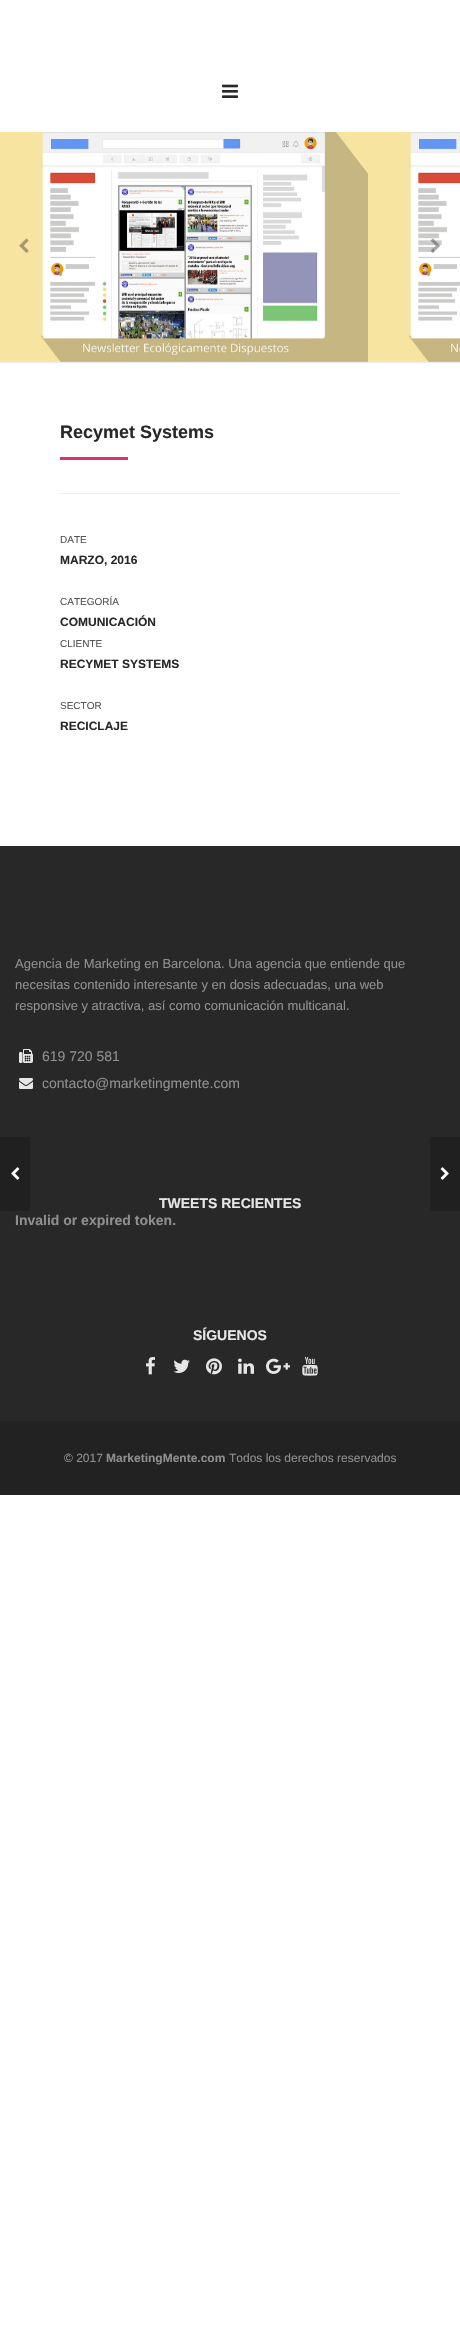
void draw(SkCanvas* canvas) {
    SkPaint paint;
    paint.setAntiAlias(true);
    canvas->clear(0xFFFFFFFF);
    canvas->drawImageRect(SkImages::DeferredFromEncodedData(SkData::MakeFromFileName("img1.png")), SkRect::MakeXYWH(222, 84, 16, 14), SkSamplingOptions());
    canvas->drawImageRect(SkImages::DeferredFromEncodedData(SkData::MakeFromFileName("img2.png")), SkRect::MakeXYWH(0, 132, 368, 230), SkSamplingOptions());
    canvas->drawImageRect(SkImages::DeferredFromEncodedData(SkData::MakeFromFileName("img3.png")), SkRect::MakeXYWH(368, 132, 92, 230), SkSamplingOptions());
    canvas->drawImageRect(SkImages::DeferredFromEncodedData(SkData::MakeFromFileName("img4.png")), SkRect::MakeXYWH(19, 238, 10, 15), SkSamplingOptions());
    canvas->drawImageRect(SkImages::DeferredFromEncodedData(SkData::MakeFromFileName("img5.png")), SkRect::MakeXYWH(430, 238, 10, 15), SkSamplingOptions());
    paint.setColor(0xFFEEEEEE);
    canvas->drawRect(SkRect::MakeXYWH(0, 362, 460, 1), paint);
    SkFont font1(fontMgr->matchFamilyStyle("Liberation Sans", SkFontStyle::Bold()), 18);
    font1.setSubpixel(true);
    paint.setColor(0xFF282828);
    canvas->drawString("Recymet Systems", 60, 438, font1, paint);
    paint.setColor(0xFFDC3564);
    canvas->drawRect(SkRect::MakeXYWH(60, 457, 68, 3), paint);
    paint.setColor(0xFFEEEEEE);
    canvas->drawRect(SkRect::MakeXYWH(60, 493, 340, 1), paint);
    SkFont font2(fontMgr->matchFamilyStyle("Liberation Sans", SkFontStyle::Normal()), 10);
    font2.setSubpixel(true);
    paint.setColor(0xFF555555);
    canvas->drawString("DATE", 60, 543, font2, paint);
    SkFont font3(fontMgr->matchFamilyStyle("Liberation Sans", SkFontStyle::Bold()), 12);
    font3.setSubpixel(true);
    paint.setColor(0xFF282828);
    canvas->drawString("MARZO, 2016", 60, 564, font3, paint);
    paint.setColor(0xFF555555);
    canvas->drawString("CATEGORÍA", 60, 605, font2, paint);
    paint.setColor(0xFF282828);
    canvas->drawString("COMUNICACIÓN", 60, 626, font3, paint);
    paint.setColor(0xFF555555);
    canvas->drawString("CLIENTE", 60, 647, font2, paint);
    paint.setColor(0xFF282828);
    canvas->drawString("RECYMET SYSTEMS", 60, 668, font3, paint);
    paint.setColor(0xFF555555);
    canvas->drawString("SECTOR", 60, 709, font2, paint);
    paint.setColor(0xFF282828);
    canvas->drawString("RECICLAJE", 60, 730, font3, paint);
    canvas->drawRect(SkRect::MakeXYWH(0, 846, 460, 575), paint);
    paint.setColor(0xFF202020);
    canvas->drawRect(SkRect::MakeXYWH(0, 1137, 30, 74), paint);
    canvas->drawImageRect(SkImages::DeferredFromEncodedData(SkData::MakeFromFileName("img6.png")), SkRect::MakeXYWH(11, 1167, 9, 13), SkSamplingOptions());
    canvas->drawRect(SkRect::MakeXYWH(430, 1137, 30, 74), paint);
    canvas->drawImageRect(SkImages::DeferredFromEncodedData(SkData::MakeFromFileName("img7.png")), SkRect::MakeXYWH(440, 1167, 9, 13), SkSamplingOptions());
    SkFont font4(fontMgr->matchFamilyStyle("Liberation Sans", SkFontStyle::Normal()), 13);
    font4.setSubpixel(true);
    paint.setColor(0xFF8F8F8F);
    canvas->drawString("Agencia de Marketing en Barcelona. Una agencia que entiende que", 15, 968, font4, paint);
    canvas->drawString("necesitas contenido interesante y en dosis adecuadas, una web", 15, 989, font4, paint);
    canvas->drawString("responsive y atractiva, así como comunicación multicanal.", 15, 1010, font4, paint);
    canvas->drawImageRect(SkImages::DeferredFromEncodedData(SkData::MakeFromFileName("img8.png")), SkRect::MakeXYWH(19, 1049, 14, 14), SkSamplingOptions());
    SkFont font5(fontMgr->matchFamilyStyle("Liberation Sans", SkFontStyle::Normal()), 14);
    font5.setSubpixel(true);
    canvas->drawString("619 720 581", 42, 1061, font5, paint);
    canvas->drawImageRect(SkImages::DeferredFromEncodedData(SkData::MakeFromFileName("img9.png")), SkRect::MakeXYWH(19, 1078, 14, 11), SkSamplingOptions());
    canvas->drawString("contacto@marketingmente.com", 42, 1088, font5, paint);
    SkFont font6(fontMgr->matchFamilyStyle("Liberation Sans", SkFontStyle::Bold()), 14);
    font6.setSubpixel(true);
    paint.setColor(0xFFE6E6E6);
    canvas->drawString("TWEETS RECIENTES", 159, 1208, font6, paint);
    paint.setColor(0xFF8F8F8F);
    canvas->drawString("Invalid or expired token.", 15, 1225, font6, paint);
    paint.setColor(0xFFE6E6E6);
    canvas->drawString("SÍGUENOS", 193, 1340, font6, paint);
    canvas->drawImageRect(SkImages::DeferredFromEncodedData(SkData::MakeFromFileName("img10.png")), SkRect::MakeXYWH(146, 1357, 9, 18), SkSamplingOptions());
    canvas->drawImageRect(SkImages::DeferredFromEncodedData(SkData::MakeFromFileName("img11.png")), SkRect::MakeXYWH(173, 1359, 17, 14), SkSamplingOptions());
    canvas->drawImageRect(SkImages::DeferredFromEncodedData(SkData::MakeFromFileName("img12.png")), SkRect::MakeXYWH(206, 1358, 16, 17), SkSamplingOptions());
    canvas->drawImageRect(SkImages::DeferredFromEncodedData(SkData::MakeFromFileName("img13.png")), SkRect::MakeXYWH(238, 1358, 16, 16), SkSamplingOptions());
    canvas->drawImageRect(SkImages::DeferredFromEncodedData(SkData::MakeFromFileName("img14.png")), SkRect::MakeXYWH(266, 1358, 24, 16), SkSamplingOptions());
    canvas->drawImageRect(SkImages::DeferredFromEncodedData(SkData::MakeFromFileName("img15.png")), SkRect::MakeXYWH(302, 1357, 16, 19), SkSamplingOptions());
    paint.setColor(0xFF222222);
    canvas->drawRect(SkRect::MakeXYWH(0, 1421, 460, 74), paint);
    SkFont font7(fontMgr->matchFamilyStyle("Liberation Sans", SkFontStyle::Normal()), 12);
    font7.setSubpixel(true);
    paint.setColor(0xFF8F8F8F);
    canvas->drawString("© 2017", 64, 1462, font7, paint);
    canvas->drawString("MarketingMente.com", 106, 1462, font3, paint);
    canvas->drawString("Todos los derechos reservados", 229, 1462, font7, paint);
}
